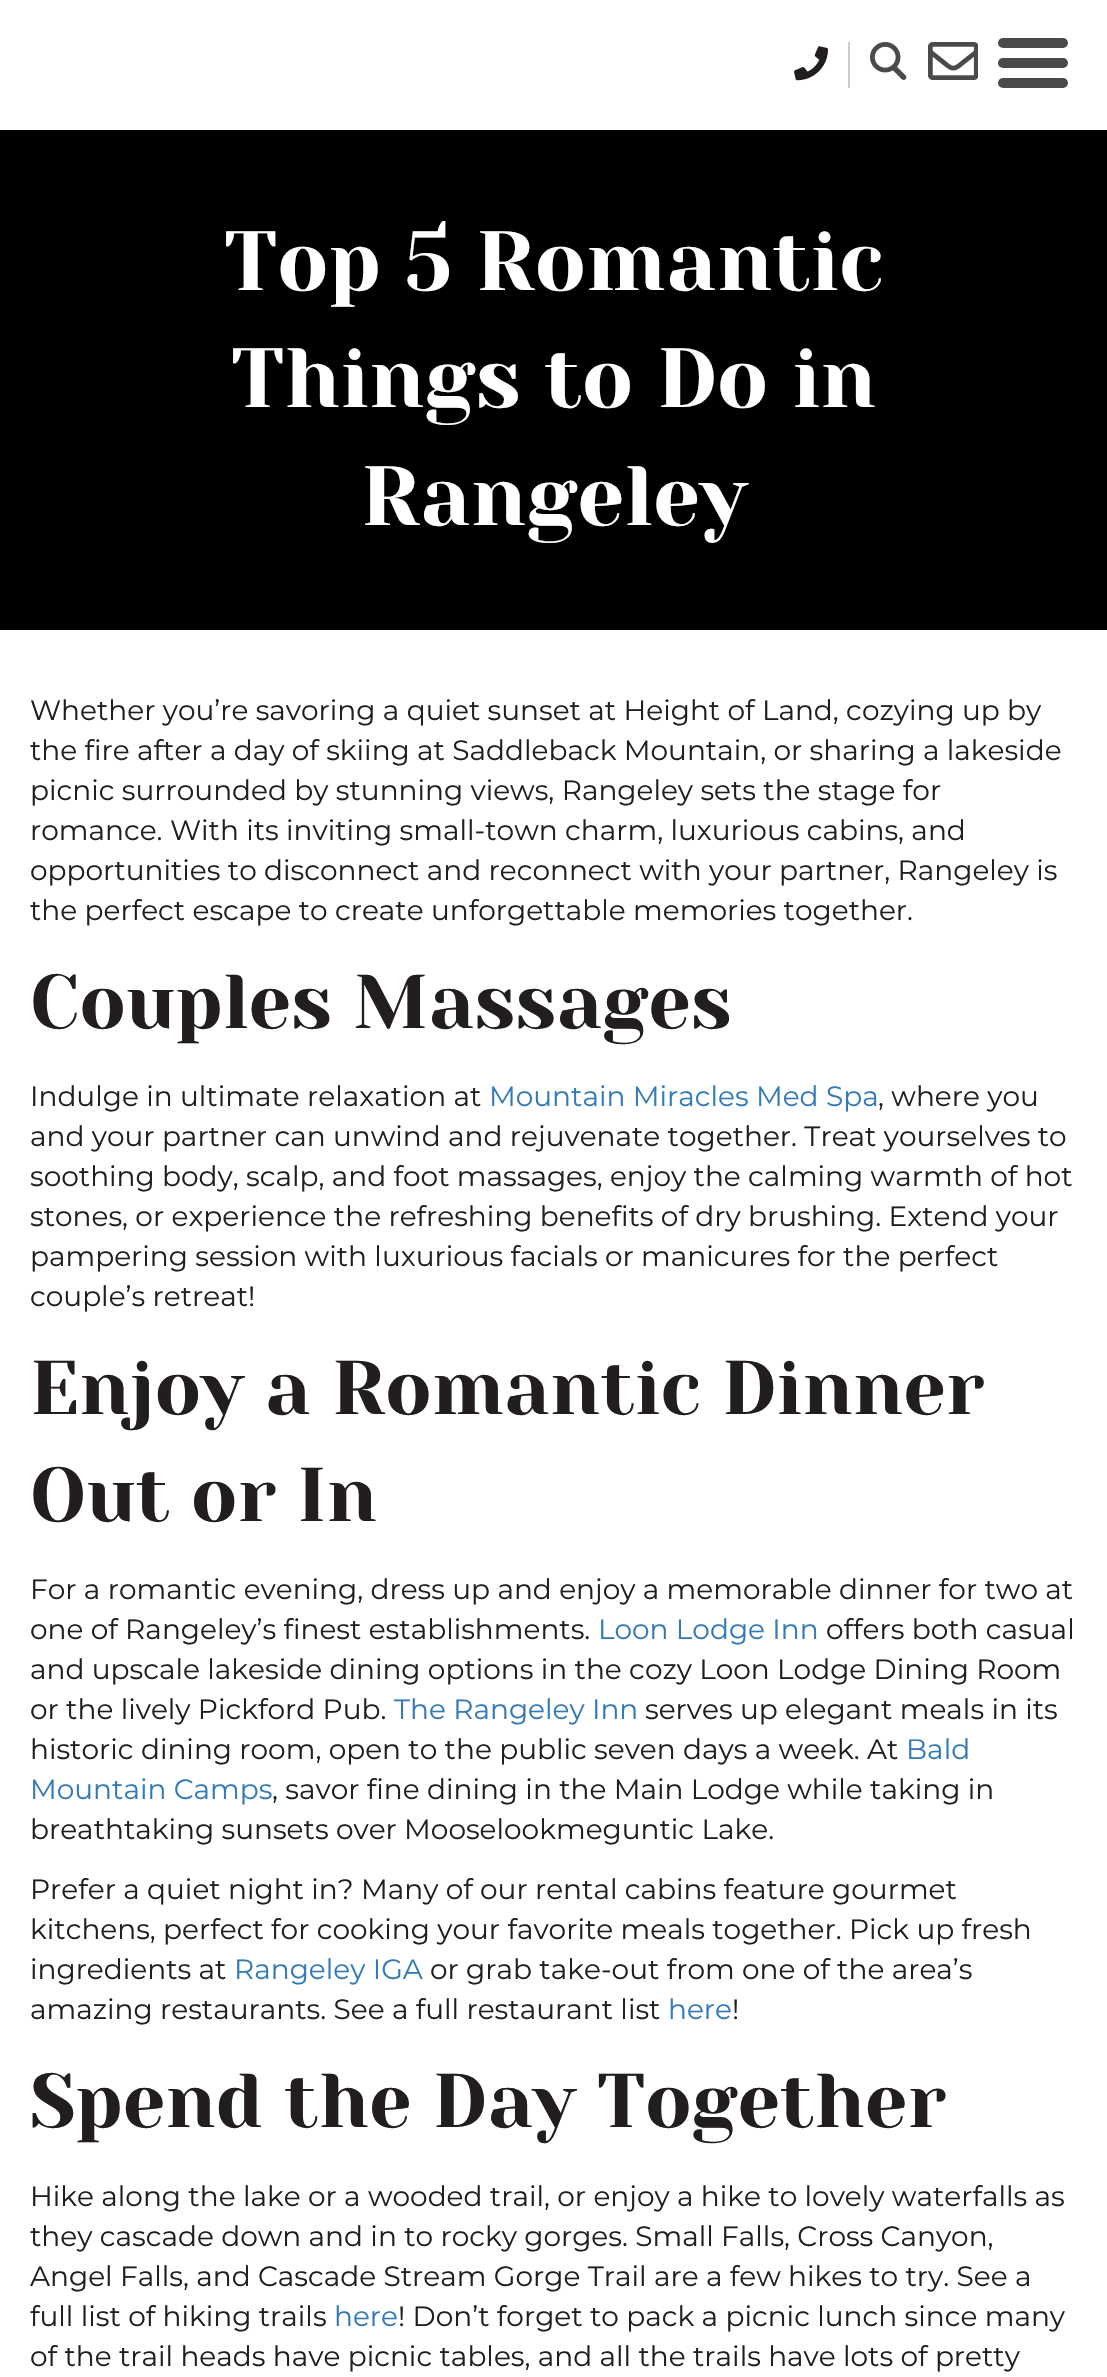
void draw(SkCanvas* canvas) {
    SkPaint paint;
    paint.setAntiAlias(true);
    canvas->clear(0xFFFFFFFF);
    canvas->drawImageRect(SkImages::DeferredFromEncodedData(SkData::MakeFromFileName("img1.png")), SkRect::MakeXYWH(794, 46, 34, 35), SkSamplingOptions());
    paint.setColor(0xFFCACACA);
    canvas->drawRect(SkRect::MakeXYWH(848, 42, 2, 46), paint);
    canvas->drawImageRect(SkImages::DeferredFromEncodedData(SkData::MakeFromFileName("img2.png")), SkRect::MakeXYWH(870, 42, 37, 38), SkSamplingOptions());
    canvas->drawImageRect(SkImages::DeferredFromEncodedData(SkData::MakeFromFileName("img3.png")), SkRect::MakeXYWH(928, 42, 50, 38), SkSamplingOptions());
    paint.setColor(0xFF4A4A4A);
    canvas->drawRoundRect(SkRect::MakeXYWH(998, 38, 70, 10), 5, 5, paint);
    canvas->drawRoundRect(SkRect::MakeXYWH(998, 58, 70, 10), 5, 5, paint);
    canvas->drawRoundRect(SkRect::MakeXYWH(998, 78, 70, 10), 5, 5, paint);
    paint.setColor(0xFF000000);
    canvas->drawRect(SkRect::MakeXYWH(0, 130, 1107, 500), paint);
    SkFont font1(fontMgr->matchFamilyStyle("Yeseva One", SkFontStyle::Normal()), 84);
    font1.setSubpixel(true);
    paint.setColor(0xFFFFFFFF);
    canvas->drawString("Top 5 Romantic", 224, 290, font1, paint);
    canvas->drawString("Things to Do in", 231, 407, font1, paint);
    canvas->drawString("Rangeley", 361, 525, font1, paint);
    SkFont font2(fontMgr->matchFamilyStyle("Montserrat", SkFontStyle(100, SkFontStyle::kNormal_Width, SkFontStyle::kUpright_Slant)), 28);
    font2.setSubpixel(true);
    paint.setColor(0xFF221E20);
    canvas->drawString("Whether you’re savoring a quiet sunset at Height of Land, cozying up by", 30, 720, font2, paint);
    canvas->drawString("the fire after a day of skiing at Saddleback Mountain, or sharing a lakeside", 30, 760, font2, paint);
    canvas->drawString("picnic surrounded by stunning views, Rangeley sets the stage for", 30, 800, font2, paint);
    canvas->drawString("romance. With its inviting small-town charm, luxurious cabins, and", 30, 840, font2, paint);
    canvas->drawString("opportunities to disconnect and reconnect with your partner, Rangeley is", 30, 880, font2, paint);
    canvas->drawString("the perfect escape to create unforgettable memories together.", 30, 920, font2, paint);
    SkFont font3(fontMgr->matchFamilyStyle("Yeseva One", SkFontStyle::Normal()), 76);
    font3.setSubpixel(true);
    canvas->drawString("Couples Massages", 30, 1028, font3, paint);
    canvas->drawString("Indulge in ultimate relaxation at", 30, 1106, font2, paint);
    paint.setColor(0xFF337AB7);
    canvas->drawString("Mountain Miracles Med Spa", 489, 1106, font2, paint);
    paint.setColor(0xFF221E20);
    canvas->drawString(", where you", 878, 1106, font2, paint);
    canvas->drawString("and your partner can unwind and rejuvenate together. Treat yourselves to", 30, 1146, font2, paint);
    canvas->drawString("soothing body, scalp, and foot massages, enjoy the calming warmth of hot", 30, 1186, font2, paint);
    canvas->drawString("stones, or experience the refreshing benefits of dry brushing. Extend your", 30, 1226, font2, paint);
    canvas->drawString("pampering session with luxurious facials or manicures for the perfect", 30, 1266, font2, paint);
    canvas->drawString("couple’s retreat!", 30, 1306, font2, paint);
    canvas->drawString("Enjoy a Romantic Dinner", 30, 1414, font3, paint);
    canvas->drawString("Out or In", 30, 1521, font3, paint);
    canvas->drawString("For a romantic evening, dress up and enjoy a memorable dinner for two at", 30, 1599, font2, paint);
    canvas->drawString("one of Rangeley’s finest establishments.", 30, 1639, font2, paint);
    paint.setColor(0xFF337AB7);
    canvas->drawString("Loon Lodge Inn", 598, 1639, font2, paint);
    paint.setColor(0xFF221E20);
    canvas->drawString("offers both casual", 826, 1639, font2, paint);
    canvas->drawString("and upscale lakeside dining options in the cozy Loon Lodge Dining Room", 30, 1679, font2, paint);
    canvas->drawString("or the lively Pickford Pub.", 30, 1719, font2, paint);
    paint.setColor(0xFF337AB7);
    canvas->drawString("The Rangeley Inn", 394, 1719, font2, paint);
    paint.setColor(0xFF221E20);
    canvas->drawString("serves up elegant meals in its", 645, 1719, font2, paint);
    canvas->drawString("historic dining room, open to the public seven days a week. At", 30, 1759, font2, paint);
    paint.setColor(0xFF337AB7);
    canvas->drawString("Bald", 906, 1759, font2, paint);
    canvas->drawString("Mountain Camps", 30, 1799, font2, paint);
    paint.setColor(0xFF221E20);
    canvas->drawString(", savor fine dining in the Main Lodge while taking in", 272, 1799, font2, paint);
    canvas->drawString("breathtaking sunsets over Mooselookmeguntic Lake.", 30, 1839, font2, paint);
    canvas->drawString("Prefer a quiet night in? Many of our rental cabins feature gourmet", 30, 1899, font2, paint);
    canvas->drawString("kitchens, perfect for cooking your favorite meals together. Pick up fresh", 30, 1939, font2, paint);
    canvas->drawString("ingredients at", 30, 1979, font2, paint);
    paint.setColor(0xFF337AB7);
    canvas->drawString("Rangeley IGA", 234, 1979, font2, paint);
    paint.setColor(0xFF221E20);
    canvas->drawString("or grab take-out from one of the area’s", 430, 1979, font2, paint);
    canvas->drawString("amazing restaurants. See a full restaurant list", 30, 2019, font2, paint);
    paint.setColor(0xFF337AB7);
    canvas->drawString("here", 668, 2019, font2, paint);
    paint.setColor(0xFF221E20);
    canvas->drawString("!", 732, 2019, font2, paint);
    canvas->drawString("Spend the Day Together", 30, 2127, font3, paint);
    canvas->drawString("Hike along the lake or a wooded trail, or enjoy a hike to lovely waterfalls as", 30, 2206, font2, paint);
    canvas->drawString("they cascade down and in to rocky gorges. Small Falls, Cross Canyon,", 30, 2246, font2, paint);
    canvas->drawString("Angel Falls, and Cascade Stream Gorge Trail are a few hikes to try. See a", 30, 2286, font2, paint);
    canvas->drawString("full list of hiking trails", 30, 2326, font2, paint);
    paint.setColor(0xFF337AB7);
    canvas->drawString("here", 334, 2326, font2, paint);
    paint.setColor(0xFF221E20);
    canvas->drawString("! Don’t forget to pack a picnic lunch since many", 398, 2326, font2, paint);
    canvas->drawString("of the trail heads have picnic tables, and all the trails have lots of pretty", 30, 2366, font2, paint);
}
